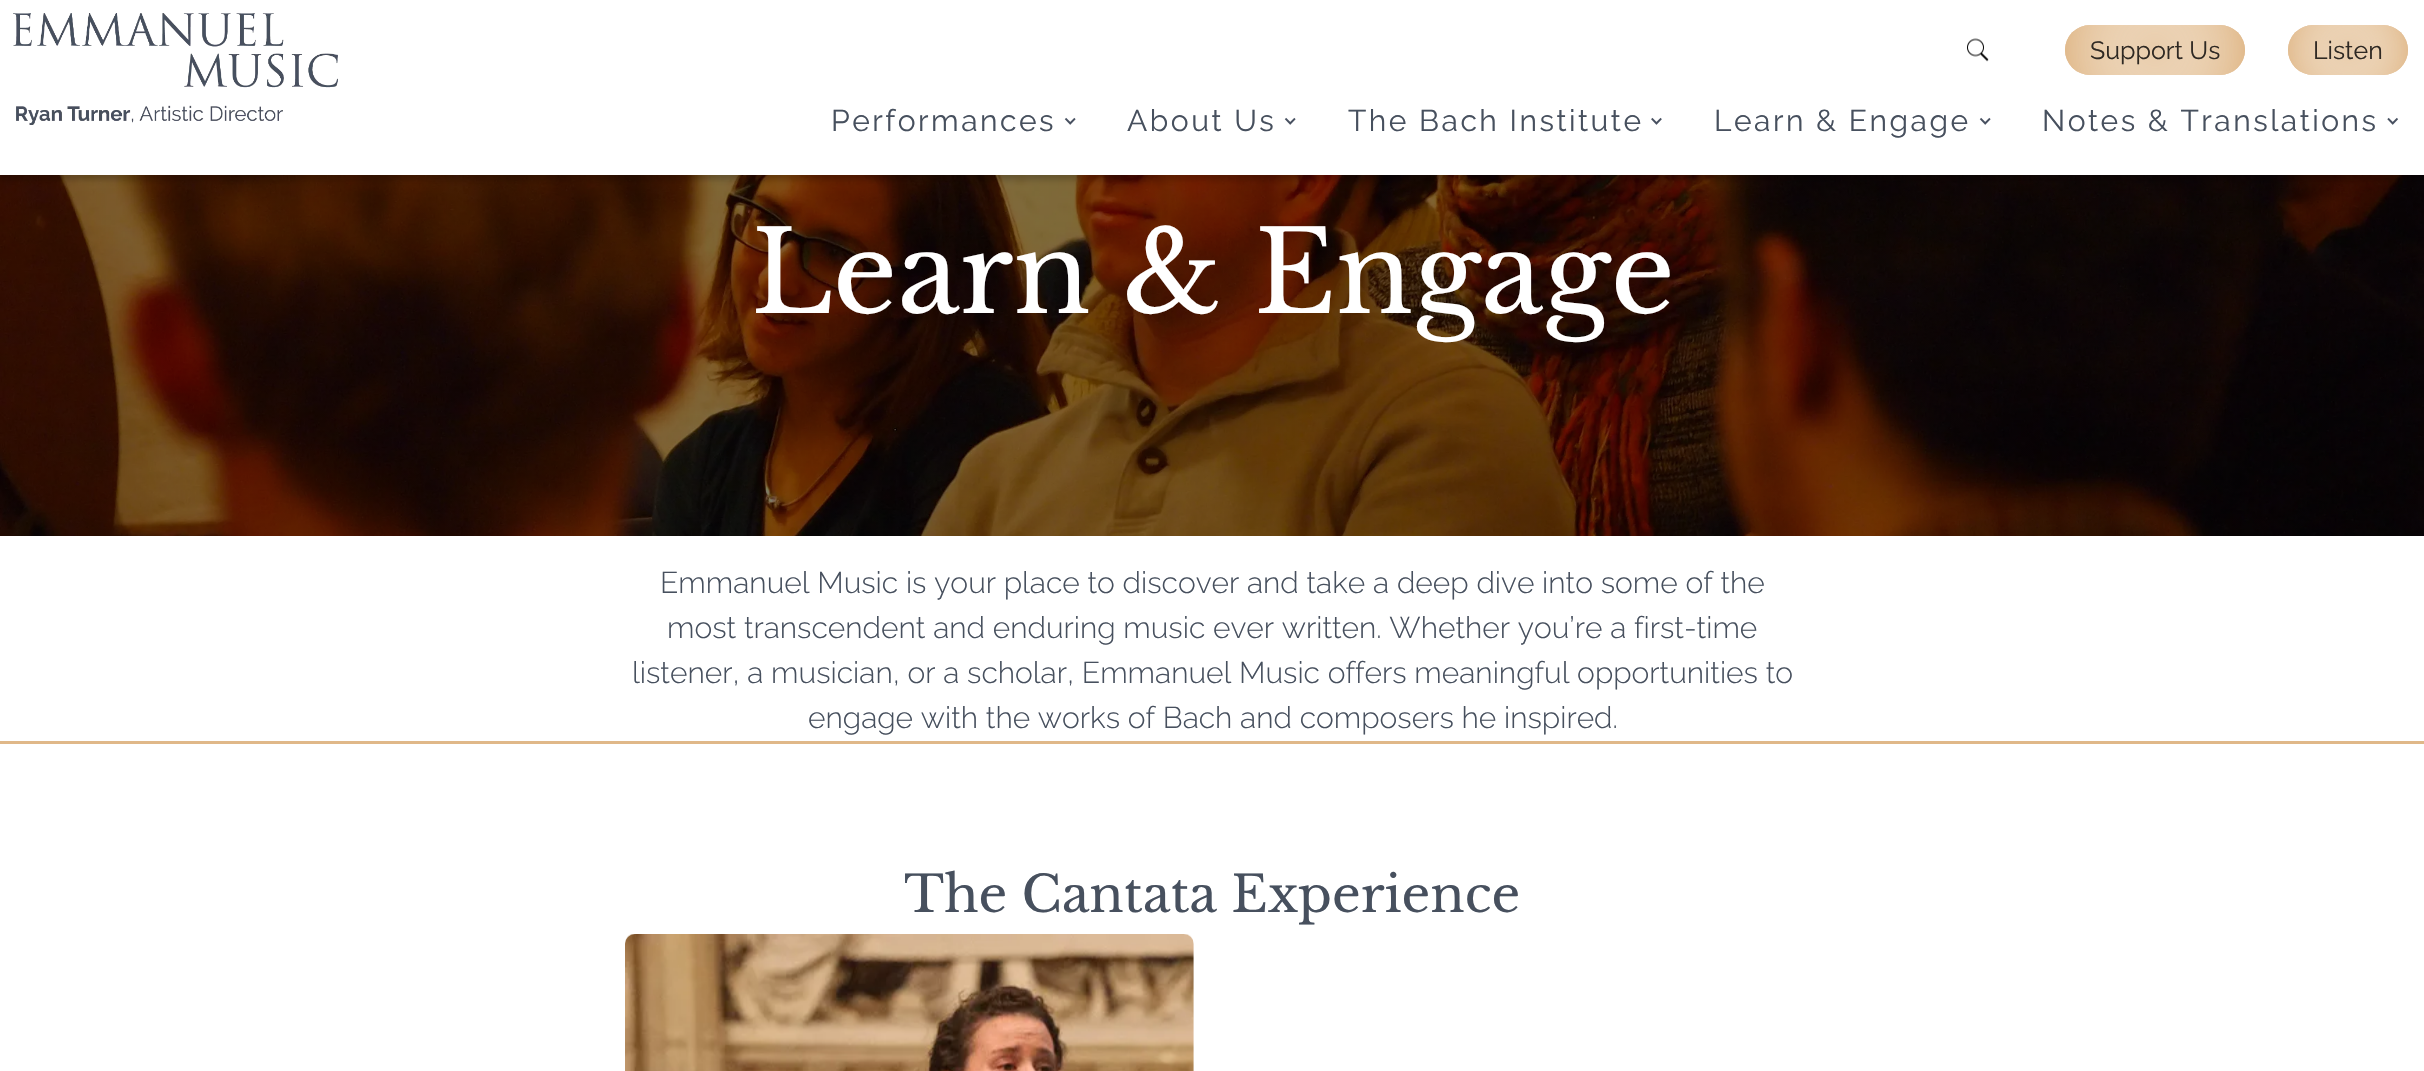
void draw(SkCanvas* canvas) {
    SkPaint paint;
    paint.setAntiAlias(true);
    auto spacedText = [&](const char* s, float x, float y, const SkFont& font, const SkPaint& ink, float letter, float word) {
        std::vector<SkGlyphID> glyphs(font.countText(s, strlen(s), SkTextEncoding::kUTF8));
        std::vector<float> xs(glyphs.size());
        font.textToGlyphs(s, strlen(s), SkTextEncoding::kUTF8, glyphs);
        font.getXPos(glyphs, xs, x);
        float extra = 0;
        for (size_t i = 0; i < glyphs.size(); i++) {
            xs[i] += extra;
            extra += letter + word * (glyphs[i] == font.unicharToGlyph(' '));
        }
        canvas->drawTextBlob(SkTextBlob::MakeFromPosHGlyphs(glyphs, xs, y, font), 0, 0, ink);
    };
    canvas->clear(0xFFFFFFFF);
    canvas->drawImageRect(SkImages::DeferredFromEncodedData(SkData::MakeFromFileName("img6.png")), SkRect::MakeXYWH(0, 175, 2424, 361), SkSamplingOptions());
    paint.setColor(0x33000000);
    paint.setMaskFilter(SkMaskFilter::MakeBlur(kNormal_SkBlurStyle, 3));
    canvas->drawRect(SkRect::MakeXYWH(0, 5, 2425, 175), paint);
    paint.setMaskFilter(nullptr);
    paint.setColor(0xFFFFFFFF);
    canvas->drawRect(SkRect::MakeXYWH(0, 0, 2424, 175), paint);
    canvas->drawImageRect(SkImages::DeferredFromEncodedData(SkData::MakeFromFileName("img1.png")), SkRect::MakeXYWH(13, 13, 325, 112), SkSamplingOptions());
    canvas->drawImageRect(SkImages::DeferredFromEncodedData(SkData::MakeFromFileName("img2.png")), SkRect::MakeXYWH(1967, 38, 22, 24), SkSamplingOptions());
    paint.setColor(0xFFE0B889);
    canvas->drawRoundRect(SkRect::MakeXYWH(2065, 25, 180, 50), 25, 25, paint);
    {
        const SkColor colors[] = {0x47FFFFFF, 0xFFE0B889};
        const float stops[] = {0, 1};
        paint.setShader(SkGradientShader::MakeRadial({2155, 50}, 93, colors, stops, 2, SkTileMode::kClamp));
        paint.setAlpha(255);
    }
    canvas->drawRoundRect(SkRect::MakeXYWH(2065, 25, 180, 50), 25, 25, paint);
    SkFont font1(fontMgr->matchFamilyStyle("Raleway", SkFontStyle::Normal()), 25);
    font1.setSubpixel(true);
    paint.setShader(nullptr);
    paint.setColor(0xFF2F2923);
    canvas->drawString("Support Us", 2090, 59, font1, paint);
    paint.setColor(0xFFE0B889);
    canvas->drawRoundRect(SkRect::MakeXYWH(2288, 25, 120, 50), 25, 25, paint);
    {
        const SkColor colors[] = {0x47FFFFFF, 0xFFE0B889};
        const float stops[] = {0, 1};
        paint.setShader(SkGradientShader::MakeRadial({2348, 50}, 65, colors, stops, 2, SkTileMode::kClamp));
        paint.setAlpha(255);
    }
    canvas->drawRoundRect(SkRect::MakeXYWH(2288, 25, 120, 50), 25, 25, paint);
    paint.setShader(nullptr);
    paint.setColor(0xFF2F2923);
    canvas->drawString("Listen", 2313, 59, font1, paint);
    SkFont font2(fontMgr->matchFamilyStyle("Raleway", SkFontStyle::Normal()), 30);
    font2.setSubpixel(true);
    paint.setColor(0xFF47505E);
    spacedText("Performances", 831, 131, font2, paint, 2.5f, 0);
    canvas->drawImageRect(SkImages::DeferredFromEncodedData(SkData::MakeFromFileName("img3.png")), SkRect::MakeXYWH(1064, 117, 12, 8), SkSamplingOptions());
    spacedText("About Us", 1127, 131, font2, paint, 2.5f, 0);
    canvas->drawImageRect(SkImages::DeferredFromEncodedData(SkData::MakeFromFileName("img3.png")), SkRect::MakeXYWH(1284, 117, 12, 8), SkSamplingOptions());
    spacedText("The Bach Institute", 1348, 131, font2, paint, 2.5f, 0);
    canvas->drawImageRect(SkImages::DeferredFromEncodedData(SkData::MakeFromFileName("img4.png")), SkRect::MakeXYWH(1651, 117, 11, 8), SkSamplingOptions());
    spacedText("Learn & Engage", 1714, 131, font2, paint, 2.5f, 0);
    canvas->drawImageRect(SkImages::DeferredFromEncodedData(SkData::MakeFromFileName("img3.png")), SkRect::MakeXYWH(1979, 117, 12, 8), SkSamplingOptions());
    spacedText("Notes & Translations", 2042, 131, font2, paint, 2.5f, 0);
    canvas->drawImageRect(SkImages::DeferredFromEncodedData(SkData::MakeFromFileName("img5.png")), SkRect::MakeXYWH(2387, 117, 11, 8), SkSamplingOptions());
    SkFont font3(fontMgr->matchFamilyStyle("Libre Baskerville", SkFontStyle::Normal()), 112.5f);
    font3.setSubpixel(true);
    paint.setColor(0xFFFFFFFF);
    canvas->drawString("Learn & Engage", 751, 313, font3, paint);
    SkFont font4(fontMgr->matchFamilyStyle("Raleway", SkFontStyle(300, SkFontStyle::kNormal_Width, SkFontStyle::kUpright_Slant)), 30);
    font4.setSubpixel(true);
    paint.setColor(0xFF47505E);
    canvas->drawString("Emmanuel Music is your place to discover and take a deep dive into some of the", 660, 593, font4, paint);
    canvas->drawString("most transcendent and enduring music ever written. Whether you’re a first-time", 667, 638, font4, paint);
    canvas->drawString("listener, a musician, or a scholar, Emmanuel Music offers meaningful opportunities to", 632, 683, font4, paint);
    canvas->drawString("engage with the works of Bach and composers he inspired.", 808, 728, font4, paint);
    paint.setColor(0xFFE0B889);
    canvas->drawRect(SkRect::MakeXYWH(0, 741, 2424, 3), paint);
    SkFont font5(fontMgr->matchFamilyStyle("Libre Baskerville", SkFontStyle::Normal()), 50);
    font5.setSubpixel(true);
    paint.setColor(0xFF47505E);
    canvas->drawString("The Cantata Experience", 904, 912, font5, paint);
    canvas->drawImageRect(SkImages::DeferredFromEncodedData(SkData::MakeFromFileName("img7.png")), SkRect::MakeXYWH(625, 934, 569, 137), SkSamplingOptions());
}
